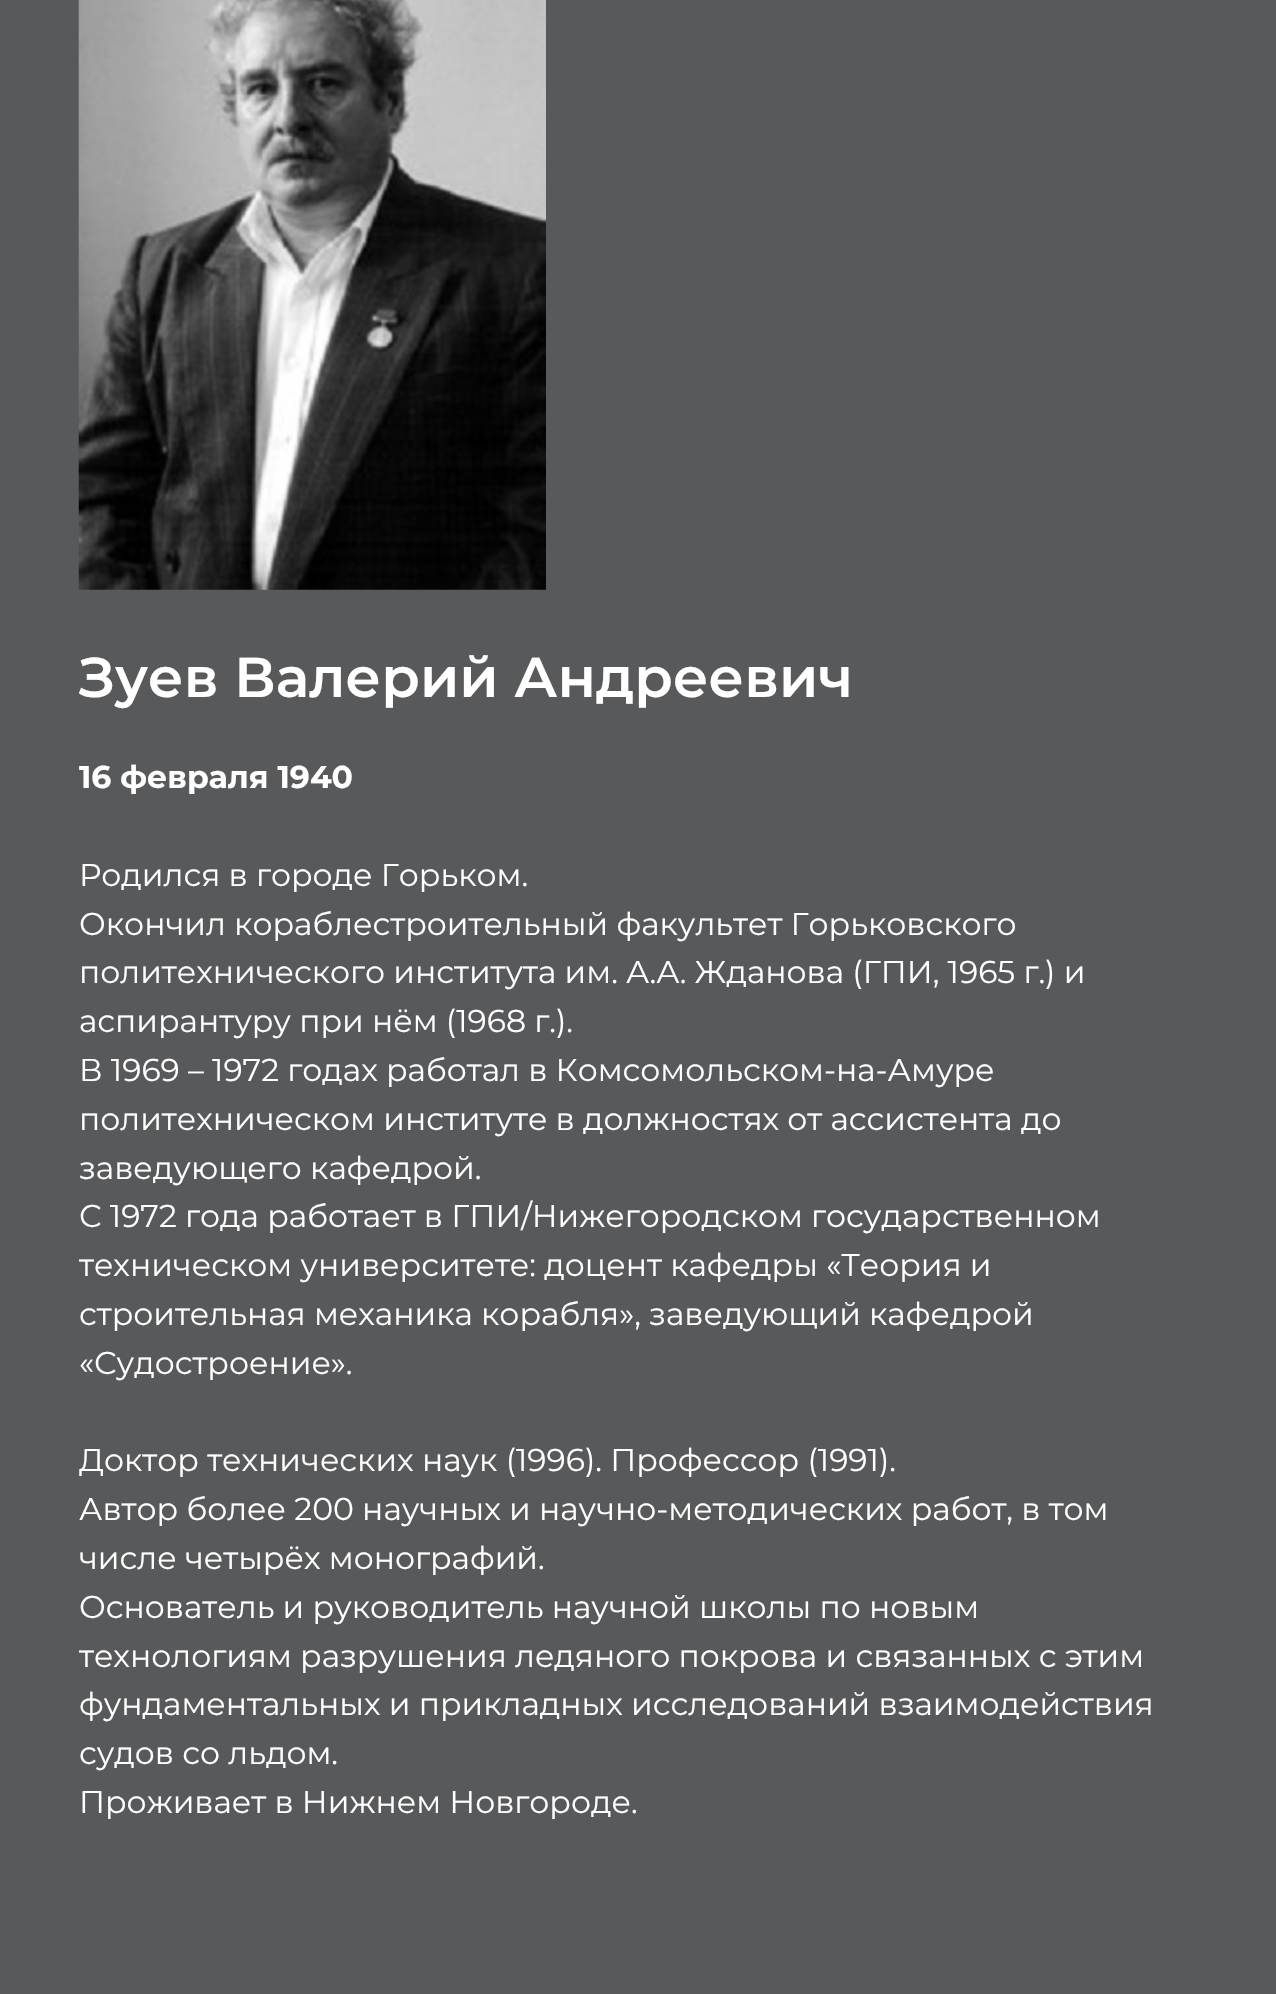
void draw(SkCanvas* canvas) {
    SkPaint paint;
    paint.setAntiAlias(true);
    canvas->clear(0xFF58595B);
    canvas->drawImageRect(SkImages::DeferredFromEncodedData(SkData::MakeFromFileName("img1.png")), SkRect::MakeXYWH(78, 0, 468, 590), SkSamplingOptions());
    SkFont font1(fontMgr->matchFamilyStyle("Montserrat", SkFontStyle(600, SkFontStyle::kNormal_Width, SkFontStyle::kUpright_Slant)), 56);
    font1.setSubpixel(true);
    paint.setColor(0xFFFFFFFF);
    canvas->drawString("Зуев Валерий Андреевич", 79, 697, font1, paint);
    SkFont font2(fontMgr->matchFamilyStyle("Montserrat", SkFontStyle::Bold()), 31.5f);
    font2.setSubpixel(true);
    canvas->drawString("16 февраля 1940", 79, 788, font2, paint);
    SkFont font3(fontMgr->matchFamilyStyle("Montserrat", SkFontStyle::Normal()), 31.5f);
    font3.setSubpixel(true);
    canvas->drawString("Родился в городе Горьком.", 79, 886, font3, paint);
    canvas->drawString("Окончил кораблестроительный факультет Горьковского", 79, 935, font3, paint);
    canvas->drawString("политехнического института им. А.А. Жданова (ГПИ, 1965 г.) и", 79, 983, font3, paint);
    canvas->drawString("аспирантуру при нём (1968 г.).", 79, 1032, font3, paint);
    canvas->drawString("В 1969 – 1972 годах работал в Комсомольском-на-Амуре", 79, 1081, font3, paint);
    canvas->drawString("политехническом институте в должностях от ассистента до", 79, 1130, font3, paint);
    canvas->drawString("заведующего кафедрой.", 79, 1179, font3, paint);
    canvas->drawString("С 1972 года работает в ГПИ/Нижегородском государственном", 79, 1227, font3, paint);
    canvas->drawString("техническом университете: доцент кафедры «Теория и", 79, 1276, font3, paint);
    canvas->drawString("строительная механика корабля», заведующий кафедрой", 79, 1325, font3, paint);
    canvas->drawString("«Судостроение».", 79, 1374, font3, paint);
    canvas->drawString("Доктор технических наук (1996). Профессор (1991).", 79, 1471, font3, paint);
    canvas->drawString("Автор более 200 научных и научно-методических работ, в том", 79, 1520, font3, paint);
    canvas->drawString("числе четырёх монографий.", 79, 1569, font3, paint);
    canvas->drawString("Основатель и руководитель научной школы по новым", 79, 1618, font3, paint);
    canvas->drawString("технологиям разрушения ледяного покрова и связанных с этим", 79, 1667, font3, paint);
    canvas->drawString("фундаментальных и прикладных исследований взаимодействия", 79, 1715, font3, paint);
    canvas->drawString("судов со льдом.", 79, 1764, font3, paint);
    canvas->drawString("Проживает в Нижнем Новгороде.", 79, 1813, font3, paint);
}
